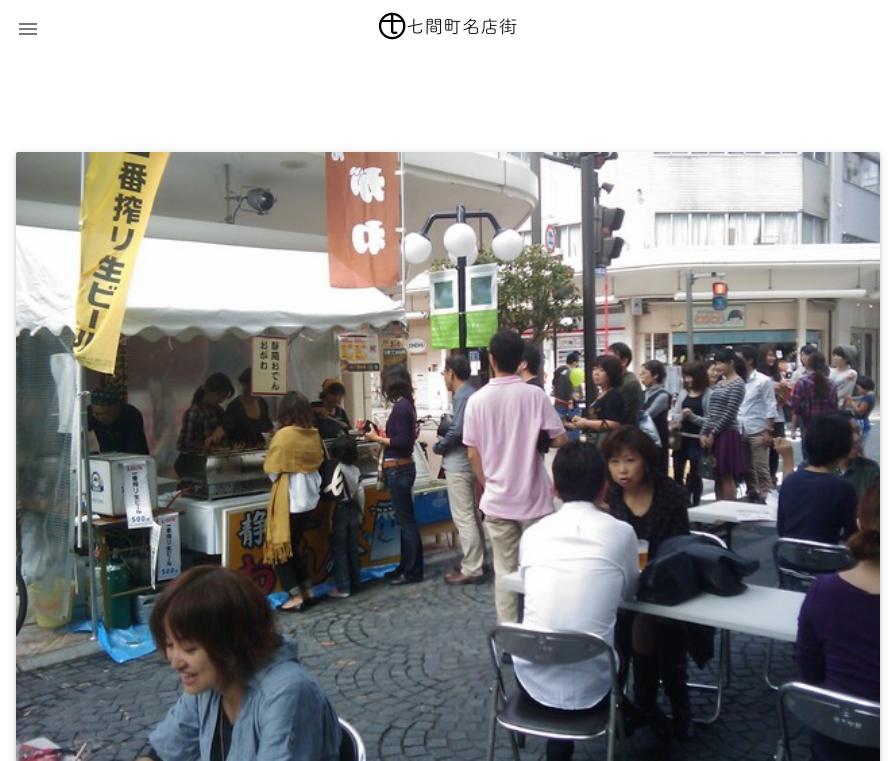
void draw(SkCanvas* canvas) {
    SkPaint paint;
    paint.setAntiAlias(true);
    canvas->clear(0xFFFFFFFF);
    canvas->drawImageRect(SkImages::DeferredFromEncodedData(SkData::MakeFromFileName("img1.png")), SkRect::MakeXYWH(19, 23, 18, 12), SkSamplingOptions());
    canvas->drawImageRect(SkImages::DeferredFromEncodedData(SkData::MakeFromFileName("img2.png")), SkRect::MakeXYWH(378, 12, 139, 28), SkSamplingOptions());
    paint.setColor(0x1F000000);
    paint.setMaskFilter(SkMaskFilter::MakeBlur(kNormal_SkBlurStyle, 4));
    canvas->drawRoundRect(SkRect::MakeXYWH(16, 153, 864, 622), 2, 2, paint);
    paint.setMaskFilter(nullptr);
    paint.setColor(0x24000000);
    paint.setMaskFilter(SkMaskFilter::MakeBlur(kNormal_SkBlurStyle, 2));
    canvas->drawRoundRect(SkRect::MakeXYWH(16, 155, 864, 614), 2, 2, paint);
    paint.setMaskFilter(nullptr);
    canvas->drawImageRect(SkImages::DeferredFromEncodedData(SkData::MakeFromFileName("img3.png")), SkRect::MakeXYWH(16, 152, 864, 609), SkSamplingOptions());
}
